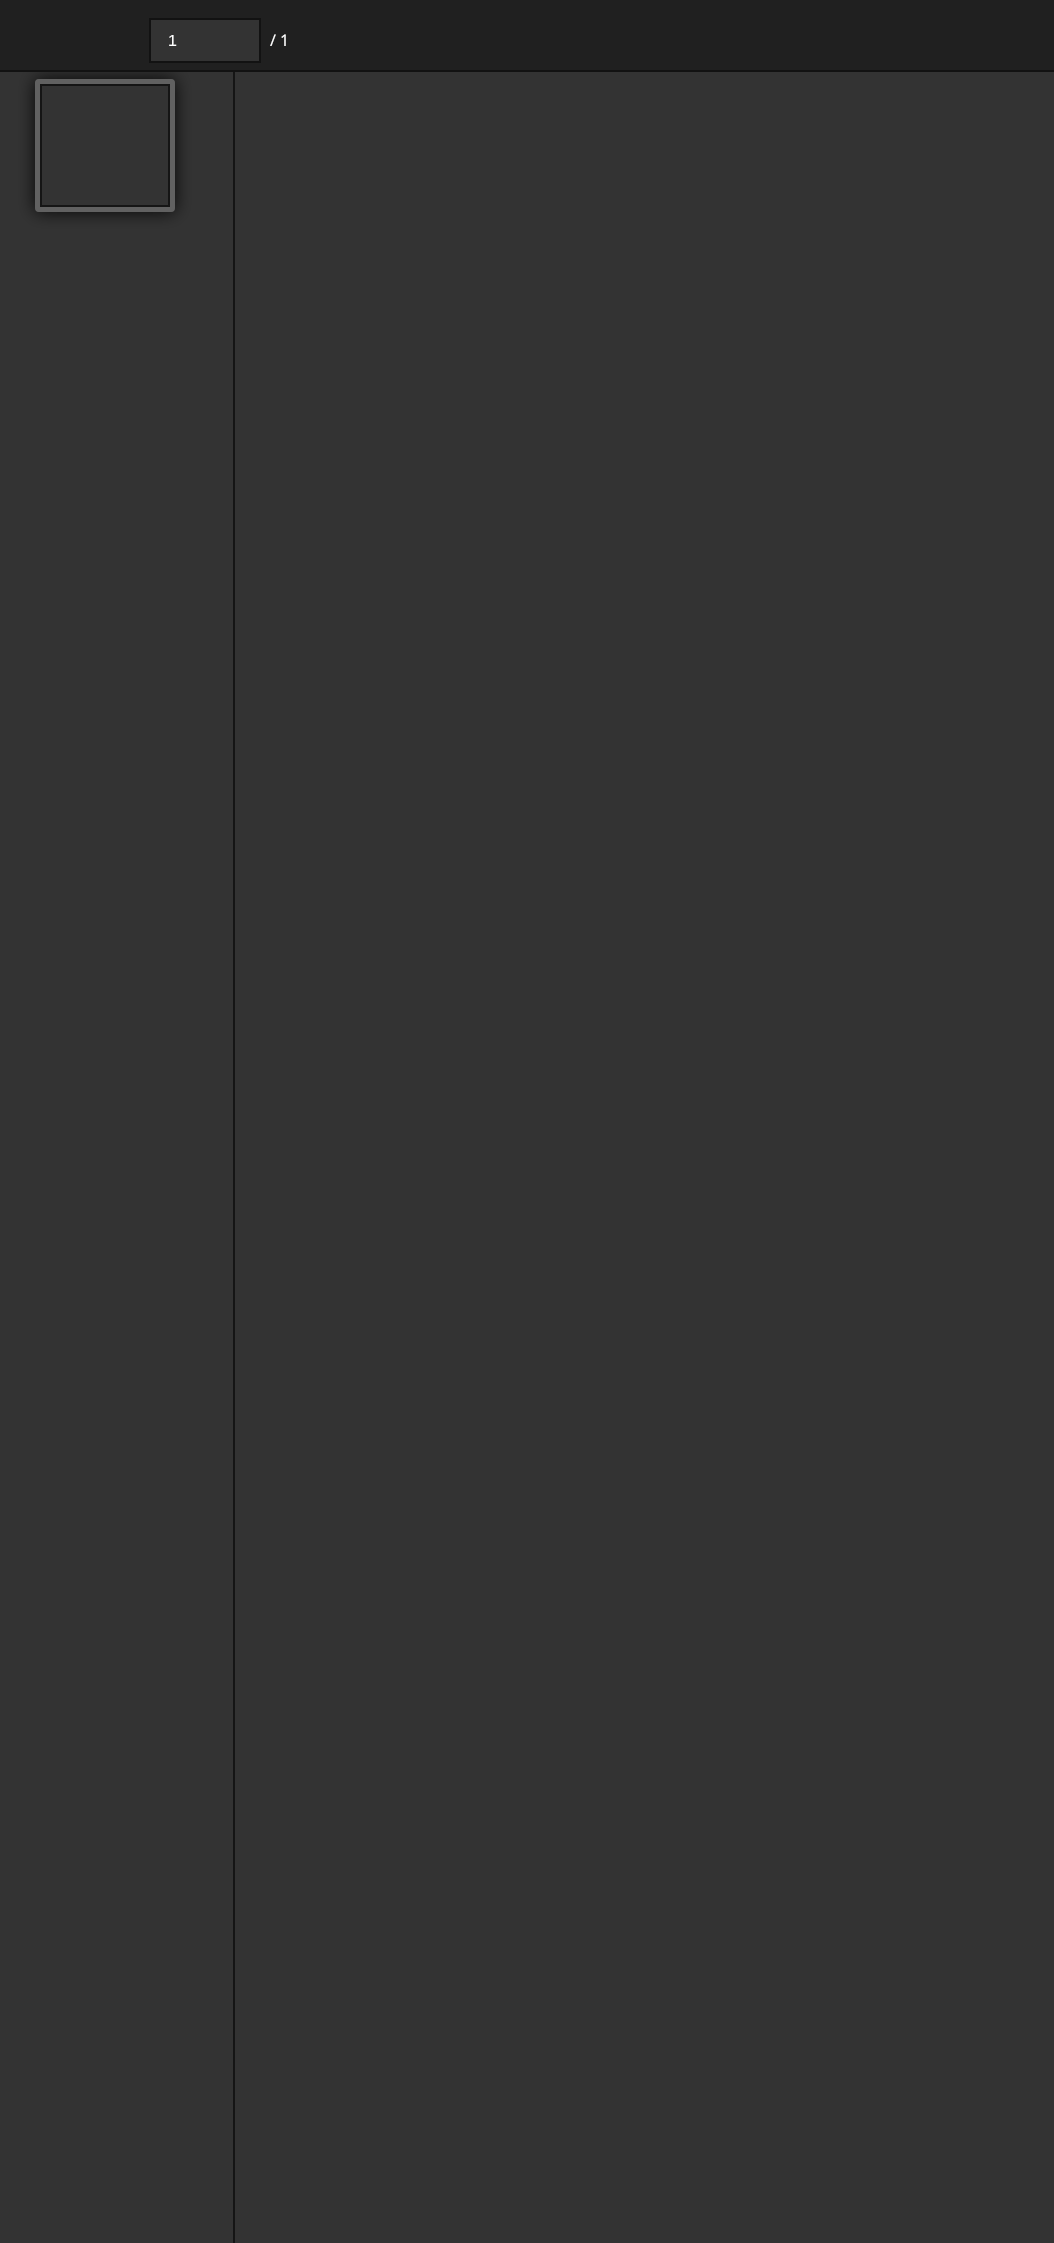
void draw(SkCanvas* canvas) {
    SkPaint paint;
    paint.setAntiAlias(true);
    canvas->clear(0xFF333333);
    canvas->save();
    canvas->clipPath(SkPathBuilder(SkPathFillType::kEvenOdd).moveTo(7, 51).lineTo(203, 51).lineTo(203, 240).lineTo(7, 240).close().moveTo(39, 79).lineTo(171, 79).cubicTo(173, 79, 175, 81, 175, 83).lineTo(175, 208).cubicTo(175, 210, 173, 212, 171, 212).lineTo(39, 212).cubicTo(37, 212, 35, 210, 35, 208).lineTo(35, 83).cubicTo(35, 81, 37, 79, 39, 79).close().detach(), true);
    paint.setColor(0xFF050505);
    paint.setMaskFilter(SkMaskFilter::MakeBlur(kNormal_SkBlurStyle, 9));
    canvas->drawRoundRect(SkRect::MakeXYWH(35, 79, 140, 133), 4, 4, paint);
    paint.setMaskFilter(nullptr);
    canvas->restore();
    paint.setColor(0xFF202020);
    canvas->drawRect(SkRect::MakeXYWH(0, 0, 1054, 70), paint);
    paint.setColor(0xFF121212);
    canvas->drawRect(SkRect::MakeXYWH(0, 70, 1054, 2), paint);
    paint.setColor(0xFF333333);
    canvas->drawRect(SkRect::MakeXYWH(150, 19, 110, 43), paint);
    paint.setStyle(SkPaint::kStroke_Style);
    paint.setStrokeWidth(2);
    paint.setColor(0xFF121212);
    canvas->drawRect(SkRect::MakeXYWH(150, 19, 110, 43), paint);
    SkFont font1(fontMgr->matchFamilyStyle("Liberation Sans", SkFontStyle::Normal()), 16);
    font1.setSubpixel(true);
    paint.setStyle(SkPaint::kFill_Style);
    paint.setColor(0xFFFFFFFF);
    canvas->drawString("1", 168, 46, font1, paint);
    SkFont font2(fontMgr->matchFamilyStyle("Noto Sans", SkFontStyle::Normal()), 16);
    font2.setSubpixel(true);
    canvas->drawString("/ 1", 270, 46, font2, paint);
    paint.setColor(0xFF151515);
    canvas->drawRect(SkRect::MakeXYWH(233, 72, 2, 2171), paint);
    paint.setStyle(SkPaint::kStroke_Style);
    paint.setStrokeWidth(5);
    paint.setColor(0xFF616161);
    canvas->drawRoundRect(SkRect::MakeXYWH(37.5f, 81.5f, 135, 128), 1.5f, 1.5f, paint);
    paint.setStrokeWidth(2);
    paint.setColor(0xFF151515);
    canvas->drawRect(SkRect::MakeXYWH(41, 85, 128, 121), paint);
}
